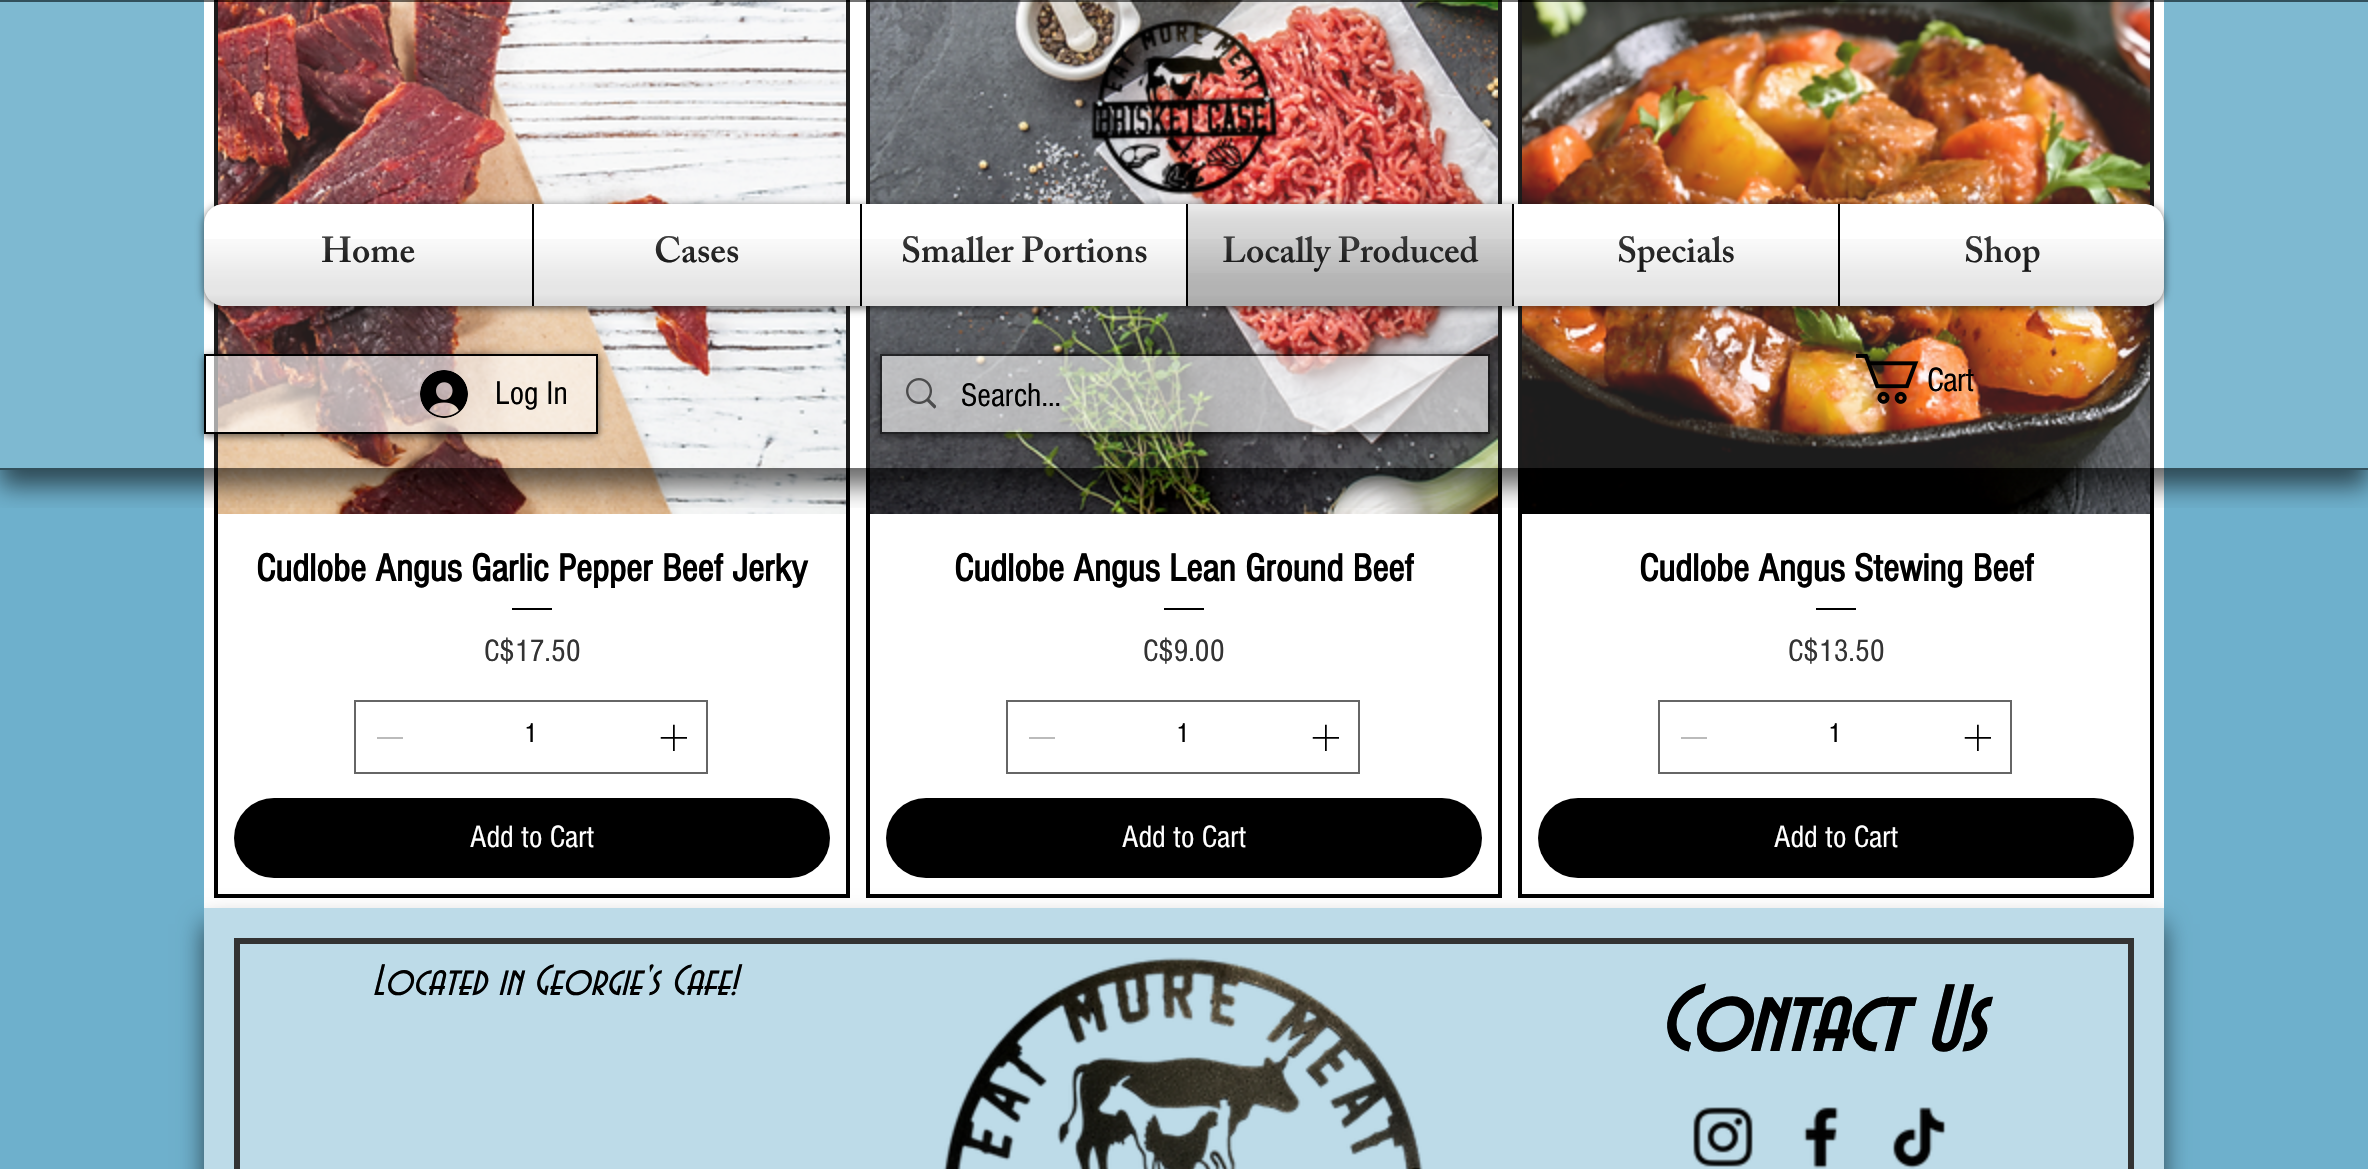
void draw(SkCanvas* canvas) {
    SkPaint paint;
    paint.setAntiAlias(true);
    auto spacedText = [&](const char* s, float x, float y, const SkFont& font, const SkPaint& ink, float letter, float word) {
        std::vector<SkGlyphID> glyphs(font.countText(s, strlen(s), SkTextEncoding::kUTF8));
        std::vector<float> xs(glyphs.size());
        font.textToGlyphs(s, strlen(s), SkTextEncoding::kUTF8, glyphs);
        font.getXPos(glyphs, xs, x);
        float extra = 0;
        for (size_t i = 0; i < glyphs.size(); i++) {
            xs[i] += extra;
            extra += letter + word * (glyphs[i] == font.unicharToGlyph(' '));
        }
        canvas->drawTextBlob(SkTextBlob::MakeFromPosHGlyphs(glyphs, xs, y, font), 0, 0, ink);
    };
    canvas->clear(0xFF6EB0CC);
    paint.setColor(0xFFFFFFFF);
    canvas->drawRect(SkRect::MakeXYWH(204, 0, 1960, 908), paint);
    paint.setStyle(SkPaint::kStroke_Style);
    paint.setStrokeWidth(4);
    paint.setColor(0xFF000000);
    canvas->drawRect(SkRect::MakeXYWH(216, -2, 632, 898), paint);
    canvas->drawImageRect(SkImages::DeferredFromEncodedData(SkData::MakeFromFileName("img19.png")), SkRect::MakeXYWH(218, 0, 628, 514), SkSamplingOptions());
    canvas->drawRect(SkRect::MakeXYWH(868, -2, 632, 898), paint);
    canvas->drawImageRect(SkImages::DeferredFromEncodedData(SkData::MakeFromFileName("img21.png")), SkRect::MakeXYWH(870, 0, 628, 514), SkSamplingOptions());
    canvas->drawRect(SkRect::MakeXYWH(1520, -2, 632, 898), paint);
    canvas->drawImageRect(SkImages::DeferredFromEncodedData(SkData::MakeFromFileName("img22.png")), SkRect::MakeXYWH(1522, 0, 628, 514), SkSamplingOptions());
    canvas->save();
    canvas->clipRect(SkRect::MakeXYWH(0, 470, 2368, 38));
    paint.setStyle(SkPaint::kFill_Style);
    paint.setColor(0x96000000);
    paint.setMaskFilter(SkMaskFilter::MakeBlur(kNormal_SkBlurStyle, 12));
    canvas->drawRect(SkRect::MakeXYWH(0, 16, 2368, 470), paint);
    paint.setMaskFilter(nullptr);
    canvas->restore();
    paint.setColor(0x8C000000);
    canvas->drawRect(SkRect::MakeXYWH(0, 0, 2368, 2), paint);
    canvas->drawRect(SkRect::MakeXYWH(0, 468, 2368, 2), paint);
    paint.setColor(0x1CFFFFFF);
    canvas->drawRect(SkRect::MakeXYWH(0, 2, 2368, 466), paint);
    canvas->drawImageRect(SkImages::DeferredFromEncodedData(SkData::MakeFromFileName("img1.png")), SkRect::MakeXYWH(1091, 19, 188, 176), SkSamplingOptions());
    paint.setColor(0x99000000);
    paint.setMaskFilter(SkMaskFilter::MakeBlur(kNormal_SkBlurStyle, 4));
    canvas->drawRoundRect(SkRect::MakeXYWH(204, 206, 1960, 102), 20, 20, paint);
    paint.setMaskFilter(nullptr);
    canvas->drawImageRect(SkImages::DeferredFromEncodedData(SkData::MakeFromFileName("img2.png")), SkRect::MakeXYWH(207, 204, 1954, 9), SkSamplingOptions());
    canvas->drawImageRect(SkImages::DeferredFromEncodedData(SkData::MakeFromFileName("img3.png")), SkRect::MakeXYWH(204, 286, 1960, 20), SkSamplingOptions());
    paint.setColor(0xFFFFFFFF);
    canvas->drawPath(SkPathBuilder().moveTo(224, 204).lineTo(532, 204).lineTo(532, 306).lineTo(224, 306).cubicTo(213, 306, 204, 297, 204, 286).lineTo(204, 224).cubicTo(204, 213, 213, 204, 224, 204).close().detach(), paint);
    SkFont font1(fontMgr->matchFamilyStyle("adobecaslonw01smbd", SkFontStyle(600, SkFontStyle::kNormal_Width, SkFontStyle::kUpright_Slant)), 36);
    font1.setSubpixel(true);
    paint.setColor(0xFF000000);
    canvas->drawString("Home", 321, 262, font1, paint);
    canvas->drawImageRect(SkImages::DeferredFromEncodedData(SkData::MakeFromFileName("img4.png")), SkRect::MakeXYWH(214, 205, 201, 58), SkSamplingOptions());
    canvas->drawImageRect(SkImages::DeferredFromEncodedData(SkData::MakeFromFileName("img5.png")), SkRect::MakeXYWH(204, 239, 328, 67), SkSamplingOptions());
    paint.setColor(0xFFFFFFFF);
    canvas->drawRect(SkRect::MakeXYWH(534, 204, 326, 102), paint);
    paint.setColor(0xFF000000);
    canvas->drawRect(SkRect::MakeXYWH(532, 204, 2, 102), paint);
    canvas->drawString("Cases", 654, 262, font1, paint);
    canvas->drawImageRect(SkImages::DeferredFromEncodedData(SkData::MakeFromFileName("img6.png")), SkRect::MakeXYWH(656, 236, 83, 27), SkSamplingOptions());
    canvas->drawImageRect(SkImages::DeferredFromEncodedData(SkData::MakeFromFileName("img7.png")), SkRect::MakeXYWH(534, 239, 326, 67), SkSamplingOptions());
    paint.setColor(0xFFFFFFFF);
    canvas->drawRect(SkRect::MakeXYWH(862, 204, 324, 102), paint);
    paint.setColor(0xFF000000);
    canvas->drawRect(SkRect::MakeXYWH(860, 204, 2, 102), paint);
    canvas->drawString("Smaller Portions", 901, 262, font1, paint);
    canvas->drawImageRect(SkImages::DeferredFromEncodedData(SkData::MakeFromFileName("img8.png")), SkRect::MakeXYWH(902, 236, 244, 27), SkSamplingOptions());
    canvas->drawImageRect(SkImages::DeferredFromEncodedData(SkData::MakeFromFileName("img9.png")), SkRect::MakeXYWH(862, 239, 324, 67), SkSamplingOptions());
    paint.setColor(0xFFC7C7C7);
    canvas->drawRect(SkRect::MakeXYWH(1188, 204, 324, 102), paint);
    paint.setColor(0xFF000000);
    canvas->drawRect(SkRect::MakeXYWH(1186, 204, 2, 102), paint);
    canvas->drawString("Locally Produced", 1222, 262, font1, paint);
    canvas->drawImageRect(SkImages::DeferredFromEncodedData(SkData::MakeFromFileName("img10.png")), SkRect::MakeXYWH(1188, 204, 324, 69), SkSamplingOptions());
    canvas->drawImageRect(SkImages::DeferredFromEncodedData(SkData::MakeFromFileName("img11.png")), SkRect::MakeXYWH(1188, 239, 324, 67), SkSamplingOptions());
    paint.setColor(0xFFFFFFFF);
    canvas->drawRect(SkRect::MakeXYWH(1514, 204, 324, 102), paint);
    paint.setColor(0xFF000000);
    canvas->drawRect(SkRect::MakeXYWH(1512, 204, 2, 102), paint);
    canvas->drawString("Specials", 1617, 262, font1, paint);
    canvas->drawImageRect(SkImages::DeferredFromEncodedData(SkData::MakeFromFileName("img12.png")), SkRect::MakeXYWH(1619, 236, 115, 36), SkSamplingOptions());
    canvas->drawImageRect(SkImages::DeferredFromEncodedData(SkData::MakeFromFileName("img13.png")), SkRect::MakeXYWH(1514, 239, 324, 67), SkSamplingOptions());
    paint.setColor(0xFFFFFFFF);
    canvas->drawPath(SkPathBuilder().moveTo(1838, 204).lineTo(2144, 204).cubicTo(2155, 204, 2164, 213, 2164, 224).lineTo(2164, 286).cubicTo(2164, 297, 2155, 306, 2144, 306).lineTo(1838, 306).close().detach(), paint);
    paint.setColor(0xFF000000);
    canvas->drawRect(SkRect::MakeXYWH(1838, 204, 2, 102), paint);
    canvas->drawString("Shop", 1964, 262, font1, paint);
    canvas->drawImageRect(SkImages::DeferredFromEncodedData(SkData::MakeFromFileName("img14.png")), SkRect::MakeXYWH(1965, 205, 189, 67), SkSamplingOptions());
    canvas->drawImageRect(SkImages::DeferredFromEncodedData(SkData::MakeFromFileName("img15.png")), SkRect::MakeXYWH(1840, 239, 324, 67), SkSamplingOptions());
    canvas->save();
    canvas->clipPath(SkPathBuilder(SkPathFillType::kEvenOdd).moveTo(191, 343).lineTo(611, 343).lineTo(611, 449).lineTo(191, 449).close().moveTo(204, 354).lineTo(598, 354).lineTo(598, 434).lineTo(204, 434).close().detach(), true);
    paint.setColor(0x99000000);
    paint.setMaskFilter(SkMaskFilter::MakeBlur(kNormal_SkBlurStyle, 4));
    canvas->drawRect(SkRect::MakeXYWH(204, 356, 394, 80), paint);
    paint.setMaskFilter(nullptr);
    canvas->restore();
    paint.setColor(0x9CFFFFFF);
    canvas->drawRect(SkRect::MakeXYWH(214, 356, 382, 76), paint);
    paint.setStyle(SkPaint::kStroke_Style);
    paint.setStrokeWidth(2);
    paint.setColor(0xFF000000);
    canvas->drawRect(SkRect::MakeXYWH(205, 355, 392, 78), paint);
    canvas->drawImageRect(SkImages::DeferredFromEncodedData(SkData::MakeFromFileName("img16.png")), SkRect::MakeXYWH(420, 370, 48, 48), SkSamplingOptions());
    SkFont font2(fontMgr->matchFamilyStyle("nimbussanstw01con", SkFontStyle::Normal()), 34);
    font2.setSubpixel(true);
    paint.setStyle(SkPaint::kFill_Style);
    canvas->drawString("Log In", 495, 404, font2, paint);
    canvas->save();
    canvas->clipPath(SkPathBuilder(SkPathFillType::kEvenOdd).moveTo(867, 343).lineTo(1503, 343).lineTo(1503, 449).lineTo(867, 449).close().moveTo(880, 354).lineTo(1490, 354).lineTo(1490, 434).lineTo(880, 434).close().detach(), true);
    paint.setColor(0x99000000);
    paint.setMaskFilter(SkMaskFilter::MakeBlur(kNormal_SkBlurStyle, 4));
    canvas->drawRect(SkRect::MakeXYWH(880, 356, 610, 80), paint);
    paint.setMaskFilter(nullptr);
    canvas->restore();
    paint.setStyle(SkPaint::kStroke_Style);
    canvas->drawRect(SkRect::MakeXYWH(881, 355, 608, 78), paint);
    paint.setStyle(SkPaint::kFill_Style);
    paint.setColor(0x9CFFFFFF);
    canvas->drawRect(SkRect::MakeXYWH(882, 356, 606, 76), paint);
    canvas->drawImageRect(SkImages::DeferredFromEncodedData(SkData::MakeFromFileName("img17.png")), SkRect::MakeXYWH(906, 378, 30, 31), SkSamplingOptions());
    paint.setColor(0xFF000000);
    canvas->drawString("Search...", 961, 406, font2, paint);
    canvas->drawImageRect(SkImages::DeferredFromEncodedData(SkData::MakeFromFileName("img18.png")), SkRect::MakeXYWH(1856, 354, 63, 50), SkSamplingOptions());
    SkFont font3(fontMgr->matchFamilyStyle("nimbussanstw01con", SkFontStyle::Normal()), 35);
    font3.setSubpixel(true);
    spacedText("Cart", 1927, 391, font3, paint, -0.5f, 0);
    SkFont font4(fontMgr->matchFamilyStyle("nimbussanstw01con", SkFontStyle::Bold()), 40);
    font4.setSubpixel(true);
    canvas->drawString("Cudlobe Angus Garlic Pepper Beef Jerky", 256, 581, font4, paint);
    canvas->drawRect(SkRect::MakeXYWH(512, 608, 40, 2), paint);
    SkFont font5(fontMgr->matchFamilyStyle("nimbussanstw01con", SkFontStyle::Normal()), 32);
    font5.setSubpixel(true);
    paint.setColor(0xFF333333);
    canvas->drawString("C$17.50", 484, 661, font5, paint);
    paint.setStyle(SkPaint::kStroke_Style);
    paint.setColor(0xFF666666);
    canvas->drawRect(SkRect::MakeXYWH(355, 701, 352, 72), paint);
    paint.setStyle(SkPaint::kFill_Style);
    paint.setColor(0xFFBBBBBB);
    canvas->drawRect(SkRect::MakeXYWH(377, 737, 26, 2), paint);
    SkFont font6(fontMgr->matchFamilyStyle("nimbussanstw01con", SkFontStyle::Normal()), 28);
    font6.setSubpixel(true);
    paint.setColor(0xFF000000);
    canvas->drawString("1", 524, 742, font6, paint);
    canvas->drawImageRect(SkImages::DeferredFromEncodedData(SkData::MakeFromFileName("img20.png")), SkRect::MakeXYWH(660, 724, 27, 27), SkSamplingOptions());
    canvas->drawRoundRect(SkRect::MakeXYWH(234, 798, 596, 80), 40, 40, paint);
    paint.setColor(0xFFFFFFFF);
    canvas->drawString("Add to Cart", 470, 847, font5, paint);
    paint.setColor(0xFF000000);
    canvas->drawString("Cudlobe Angus Lean Ground Beef", 954, 581, font4, paint);
    canvas->drawRect(SkRect::MakeXYWH(1164, 608, 40, 2), paint);
    paint.setColor(0xFF333333);
    canvas->drawString("C$9.00", 1143, 661, font5, paint);
    paint.setStyle(SkPaint::kStroke_Style);
    paint.setColor(0xFF666666);
    canvas->drawRect(SkRect::MakeXYWH(1007, 701, 352, 72), paint);
    paint.setStyle(SkPaint::kFill_Style);
    paint.setColor(0xFFBBBBBB);
    canvas->drawRect(SkRect::MakeXYWH(1029, 737, 26, 2), paint);
    paint.setColor(0xFF000000);
    canvas->drawString("1", 1176, 742, font6, paint);
    canvas->drawImageRect(SkImages::DeferredFromEncodedData(SkData::MakeFromFileName("img20.png")), SkRect::MakeXYWH(1312, 724, 27, 27), SkSamplingOptions());
    canvas->drawRoundRect(SkRect::MakeXYWH(886, 798, 596, 80), 40, 40, paint);
    paint.setColor(0xFFFFFFFF);
    canvas->drawString("Add to Cart", 1122, 847, font5, paint);
    paint.setColor(0xFF000000);
    canvas->drawString("Cudlobe Angus Stewing Beef", 1639, 581, font4, paint);
    canvas->drawRect(SkRect::MakeXYWH(1816, 608, 40, 2), paint);
    paint.setColor(0xFF333333);
    canvas->drawString("C$13.50", 1788, 661, font5, paint);
    paint.setStyle(SkPaint::kStroke_Style);
    paint.setColor(0xFF666666);
    canvas->drawRect(SkRect::MakeXYWH(1659, 701, 352, 72), paint);
    paint.setStyle(SkPaint::kFill_Style);
    paint.setColor(0xFFBBBBBB);
    canvas->drawRect(SkRect::MakeXYWH(1681, 737, 26, 2), paint);
    paint.setColor(0xFF000000);
    canvas->drawString("1", 1828, 742, font6, paint);
    canvas->drawImageRect(SkImages::DeferredFromEncodedData(SkData::MakeFromFileName("img20.png")), SkRect::MakeXYWH(1964, 724, 27, 27), SkSamplingOptions());
    canvas->drawRoundRect(SkRect::MakeXYWH(1538, 798, 596, 80), 40, 40, paint);
    paint.setColor(0xFFFFFFFF);
    canvas->drawString("Add to Cart", 1774, 847, font5, paint);
    paint.setColor(0x99000000);
    paint.setMaskFilter(SkMaskFilter::MakeBlur(kNormal_SkBlurStyle, 12));
    canvas->drawRect(SkRect::MakeXYWH(204, 924, 1960, 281), paint);
    paint.setMaskFilter(nullptr);
    paint.setColor(0xFFBDDBE8);
    canvas->drawRect(SkRect::MakeXYWH(204, 908, 1960, 261), paint);
    paint.setStyle(SkPaint::kStroke_Style);
    paint.setStrokeWidth(6);
    paint.setColor(0xFF333333);
    canvas->drawRect(SkRect::MakeXYWH(237, 941, 1894, 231), paint);
    SkFont font7(fontMgr->matchFamilyStyle("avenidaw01", SkFontStyle::Italic()), 46);
    font7.setSubpixel(true);
    paint.setStyle(SkPaint::kFill_Style);
    paint.setColor(0xFF000000);
    canvas->drawString("Located in Georgie's Cafe!", 372, 995, font7, paint);
    canvas->drawImageRect(SkImages::DeferredFromEncodedData(SkData::MakeFromFileName("img23.png")), SkRect::MakeXYWH(943, 957, 480, 212), SkSamplingOptions());
    SkFont font8(fontMgr->matchFamilyStyle("avenidaw01", SkFontStyle::BoldItalic()), 96);
    font8.setSubpixel(true);
    canvas->drawString("Contact Us", 1657, 1051, font8, paint);
    canvas->drawImageRect(SkImages::DeferredFromEncodedData(SkData::MakeFromFileName("img24.png")), SkRect::MakeXYWH(1693, 1107, 60, 60), SkSamplingOptions());
    canvas->drawImageRect(SkImages::DeferredFromEncodedData(SkData::MakeFromFileName("img25.png")), SkRect::MakeXYWH(1803, 1107, 36, 62), SkSamplingOptions());
    canvas->drawImageRect(SkImages::DeferredFromEncodedData(SkData::MakeFromFileName("img26.png")), SkRect::MakeXYWH(1892, 1107, 54, 62), SkSamplingOptions());
}
